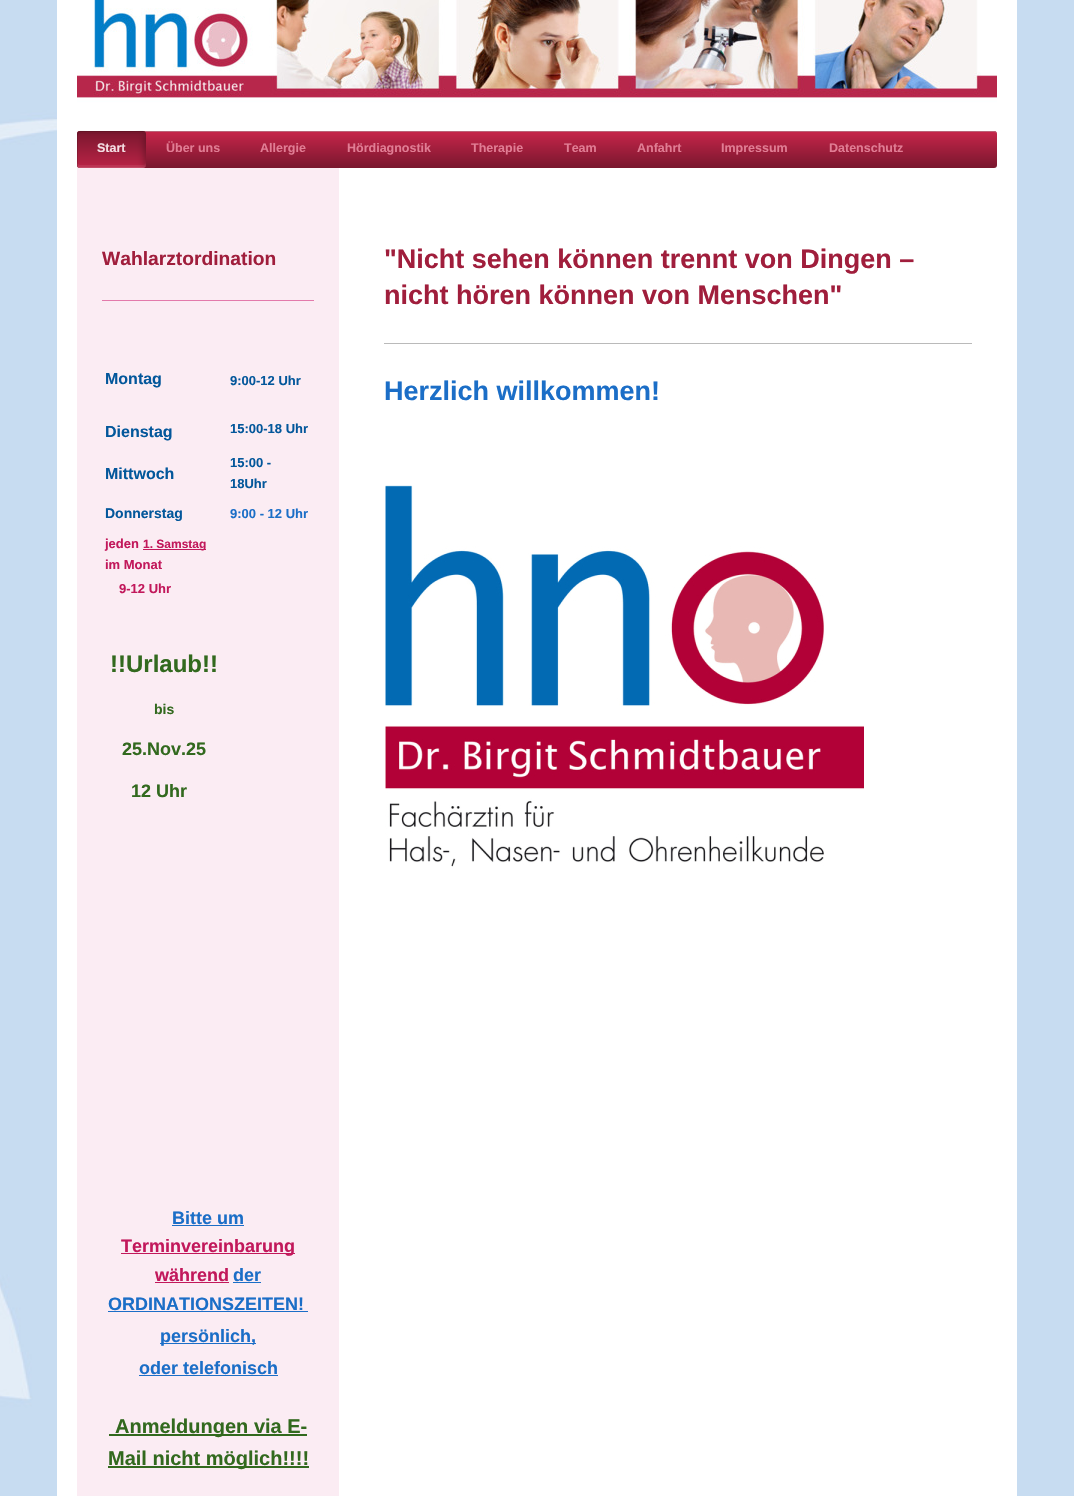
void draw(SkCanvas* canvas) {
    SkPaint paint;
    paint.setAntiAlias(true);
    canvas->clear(0xFFFFFFFF);
    canvas->drawImageRect(SkImages::DeferredFromEncodedData(SkData::MakeFromFileName("img1.png")), SkRect::MakeXYWH(0, 0, 1074, 1496), SkSamplingOptions());
    paint.setColor(0xFFFFFFFF);
    canvas->drawRect(SkRect::MakeXYWH(57, 0, 960, 1496), paint);
    canvas->drawImageRect(SkImages::DeferredFromEncodedData(SkData::MakeFromFileName("img2.png")), SkRect::MakeXYWH(77, 0, 920, 111), SkSamplingOptions());
    {
        const SkColor colors[] = {0xFFC7254A, 0xFF79172E};
        const float stops[] = {0, 1};
        const SkPoint ends[] = {{77, 131}, {77, 168}};
        paint.setShader(SkGradientShader::MakeLinear(ends, colors, stops, 2, SkTileMode::kClamp));
        paint.setAlpha(255);
    }
    canvas->drawRoundRect(SkRect::MakeXYWH(77, 131, 920, 37), 3, 3, paint);
    paint.setShader(nullptr);
    paint.setColor(0xFF9C1D3A);
    canvas->drawPath(SkPathBuilder().moveTo(80, 132).lineTo(994, 132).cubicTo(996, 132, 997, 133, 997, 135).cubicTo(997, 133, 996, 131, 994, 131).lineTo(80, 131).cubicTo(78, 131, 77, 133, 77, 135).cubicTo(77, 133, 78, 132, 80, 132).close().detach(), paint);
    paint.setColor(0x4DFFFFFF);
    canvas->drawPath(SkPathBuilder().moveTo(80, 132).lineTo(994, 132).cubicTo(996, 132, 997, 133, 997, 135).cubicTo(997, 133, 996, 131, 994, 131).lineTo(80, 131).cubicTo(78, 131, 77, 133, 77, 135).cubicTo(77, 133, 78, 132, 80, 132).close().detach(), paint);
    {
        const SkColor colors[] = {0xFFBA2346, 0xFF79172E};
        const float stops[] = {0, 1};
        const SkPoint ends[] = {{77, 168}, {77, 131}};
        paint.setShader(SkGradientShader::MakeLinear(ends, colors, stops, 2, SkTileMode::kClamp));
        paint.setAlpha(255);
    }
    canvas->drawRoundRect(SkRect::MakeXYWH(77, 131, 69, 37), 3, 3, paint);
    paint.setShader(nullptr);
    paint.setColor(0x26000000);
    canvas->drawPath(SkPathBuilder().moveTo(81, 132).lineTo(145, 132).cubicTo(145, 131, 144, 131, 143, 131).lineTo(80, 131).cubicTo(78, 131, 77, 132, 77, 134).lineTo(77, 165).cubicTo(77, 166, 77, 167, 78, 167).lineTo(78, 140).cubicTo(78, 138, 77, 132, 81, 132).close().detach(), paint);
    paint.setColor(0x0A000000);
    canvas->drawPath(SkPathBuilder().moveTo(80, 134).lineTo(143, 134).cubicTo(145, 134, 146, 135, 146, 137).cubicTo(146, 128, 142, 131, 132, 131).lineTo(90, 131).cubicTo(81, 131, 77, 128, 77, 137).cubicTo(77, 135, 78, 134, 80, 134).close().detach(), paint);
    paint.setColor(0xFFFBECF3);
    canvas->drawRect(SkRect::MakeXYWH(77, 168, 262, 1328), paint);
    paint.setColor(0x14FFFFFF);
    canvas->drawPath(SkPathBuilder().moveTo(77, 162).cubicTo(77, 171, 81, 168, 90, 168).lineTo(132, 168).cubicTo(142, 168, 146, 171, 146, 162).cubicTo(146, 164, 145, 165, 143, 165).lineTo(80, 165).cubicTo(78, 165, 77, 164, 77, 162).close().detach(), paint);
    paint.setColor(0x1AFFFFFF);
    canvas->drawPath(SkPathBuilder().moveTo(77, 164).cubicTo(77, 171, 86, 168, 90, 168).lineTo(132, 168).cubicTo(137, 168, 146, 171, 146, 164).cubicTo(146, 166, 145, 167, 143, 167).lineTo(80, 167).cubicTo(78, 167, 77, 166, 77, 164).close().detach(), paint);
    SkFont font1(fontMgr->matchFamilyStyle("Liberation Sans", SkFontStyle::Bold()), 12.5f);
    font1.setSubpixel(true);
    paint.setColor(0xFFF4DEE3);
    canvas->drawString("Start", 97, 152, font1, paint);
    canvas->save();
    canvas->clipPath(SkPathBuilder().moveTo(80, 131).lineTo(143, 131).cubicTo(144.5f, 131, 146, 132.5f, 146, 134).lineTo(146, 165).cubicTo(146, 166.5f, 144.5f, 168, 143, 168).lineTo(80, 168).cubicTo(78.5f, 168, 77, 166.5f, 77, 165).lineTo(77, 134).cubicTo(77, 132.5f, 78.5f, 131, 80, 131).close().detach(), true);
    paint.setColor(0x4D000000);
    paint.setMaskFilter(SkMaskFilter::MakeBlur(kNormal_SkBlurStyle, 3.5f));
    canvas->drawRoundRect(SkRect::MakeXYWH(144, 133, 16, 37), 8, 8, paint);
    paint.setMaskFilter(nullptr);
    canvas->restore();
    paint.setColor(0xFFE17D94);
    canvas->drawString("Über uns", 166, 152, font1, paint);
    canvas->drawString("Allergie", 260, 152, font1, paint);
    canvas->drawString("Hördiagnostik", 347, 152, font1, paint);
    canvas->drawString("Therapie", 471, 152, font1, paint);
    canvas->drawString("Team", 564, 152, font1, paint);
    canvas->drawString("Anfahrt", 637, 152, font1, paint);
    canvas->drawString("Impressum", 721, 152, font1, paint);
    canvas->drawString("Datenschutz", 829, 152, font1, paint);
    SkFont font2(fontMgr->matchFamilyStyle("Liberation Sans", SkFontStyle::Bold()), 27);
    font2.setSubpixel(true);
    paint.setColor(0xFFA01E3C);
    canvas->drawString("\"Nicht sehen können trennt von Dingen –", 384, 268, font2, paint);
    canvas->drawString("nicht hören können von Menschen\"", 384, 304, font2, paint);
    paint.setColor(0xFFBABABA);
    canvas->drawRect(SkRect::MakeXYWH(384, 343, 588, 1), paint);
    paint.setColor(0xFF1B6EC7);
    canvas->drawString("Herzlich willkommen!", 384, 400, font2, paint);
    canvas->drawImageRect(SkImages::DeferredFromEncodedData(SkData::MakeFromFileName("img3.png")), SkRect::MakeXYWH(385, 485, 479, 382), SkSamplingOptions());
    SkFont font3(fontMgr->matchFamilyStyle("Liberation Sans", SkFontStyle::Bold()), 19.25f);
    font3.setSubpixel(true);
    paint.setColor(0xFFA01E3C);
    canvas->drawString("Wahlarztordination", 102, 265, font3, paint);
    paint.setColor(0xFFE37AAB);
    canvas->drawRect(SkRect::MakeXYWH(102, 300, 212, 1), paint);
    SkFont font4(fontMgr->matchFamilyStyle("Liberation Sans", SkFontStyle::Bold()), 16);
    font4.setSubpixel(true);
    paint.setColor(0xFF03579B);
    canvas->drawString("Montag", 105, 384, font4, paint);
    canvas->drawString("Dienstag", 105, 437, font4, paint);
    SkFont font5(fontMgr->matchFamilyStyle("Liberation Sans", SkFontStyle::Bold()), 13);
    font5.setSubpixel(true);
    canvas->drawString("9:00-12 Uhr", 230, 385, font5, paint);
    canvas->drawString("15:00-18 Uhr", 230, 433, font5, paint);
    canvas->drawString("Mittwoch", 105, 479, font4, paint);
    canvas->drawString("15:00 -", 230, 467, font5, paint);
    canvas->drawString("18Uhr", 230, 488, font5, paint);
    SkFont font6(fontMgr->matchFamilyStyle("Liberation Sans", SkFontStyle::Bold()), 14);
    font6.setSubpixel(true);
    canvas->drawString("Donnerstag", 105, 518, font6, paint);
    paint.setColor(0xFF1B6EC7);
    canvas->drawString("9:00 - 12 Uhr", 230, 518, font5, paint);
    paint.setColor(0xFFC2185B);
    canvas->drawString("jeden", 105, 548, font5, paint);
    canvas->drawRect(SkRect::MakeXYWH(143, 549, 63, 1), paint);
    SkFont font7(fontMgr->matchFamilyStyle("Liberation Sans", SkFontStyle::Bold()), 12);
    font7.setSubpixel(true);
    canvas->drawString("1. Samstag", 143, 548, font7, paint);
    canvas->drawString("im Monat", 105, 569, font5, paint);
    canvas->drawString("9-12 Uhr", 119, 593, font5, paint);
    SkFont font8(fontMgr->matchFamilyStyle("Liberation Sans", SkFontStyle::Bold()), 24);
    font8.setSubpixel(true);
    paint.setColor(0xFF32691E);
    canvas->drawString("!!Urlaub!!", 110, 672, font8, paint);
    canvas->drawString("bis", 154, 714, font6, paint);
    SkFont font9(fontMgr->matchFamilyStyle("Liberation Sans", SkFontStyle::Bold()), 18);
    font9.setSubpixel(true);
    canvas->drawString("25.Nov.25", 122, 755, font9, paint);
    canvas->drawString("12 Uhr", 131, 797, font9, paint);
    paint.setColor(0xFF1B6EC7);
    canvas->drawString("Bitte um", 172, 1224, font9, paint);
    canvas->drawRect(SkRect::MakeXYWH(172, 1225, 72, 1), paint);
    paint.setColor(0xFFC2185B);
    canvas->drawRect(SkRect::MakeXYWH(121, 1253, 174, 1), paint);
    canvas->drawString("Terminvereinbarung", 121, 1252, font9, paint);
    canvas->drawString("während", 155, 1281, font9, paint);
    canvas->drawRect(SkRect::MakeXYWH(155, 1282, 74, 1), paint);
    paint.setColor(0xFF1B6EC7);
    canvas->drawString("der", 233, 1281, font9, paint);
    canvas->drawRect(SkRect::MakeXYWH(233, 1282, 28, 1), paint);
    canvas->drawString("ORDINATIONSZEITEN!", 108, 1310, font9, paint);
    canvas->drawRect(SkRect::MakeXYWH(108, 1311, 200, 1), paint);
    canvas->drawRect(SkRect::MakeXYWH(160, 1343, 96, 1), paint);
    canvas->drawString("persönlich,", 160, 1342, font9, paint);
    canvas->drawString("oder telefonisch", 139, 1374, font9, paint);
    canvas->drawRect(SkRect::MakeXYWH(139, 1375, 139, 1), paint);
    paint.setColor(0xFF32691E);
    canvas->drawRect(SkRect::MakeXYWH(109, 1434, 198, 2), paint);
    SkFont font10(fontMgr->matchFamilyStyle("Liberation Sans", SkFontStyle::Bold()), 20);
    font10.setSubpixel(true);
    canvas->drawString("Anmeldungen via E-", 115, 1433, font10, paint);
    canvas->drawRect(SkRect::MakeXYWH(108, 1466, 201, 2), paint);
    canvas->drawString("Mail nicht möglich!!!!", 108, 1465, font10, paint);
}
